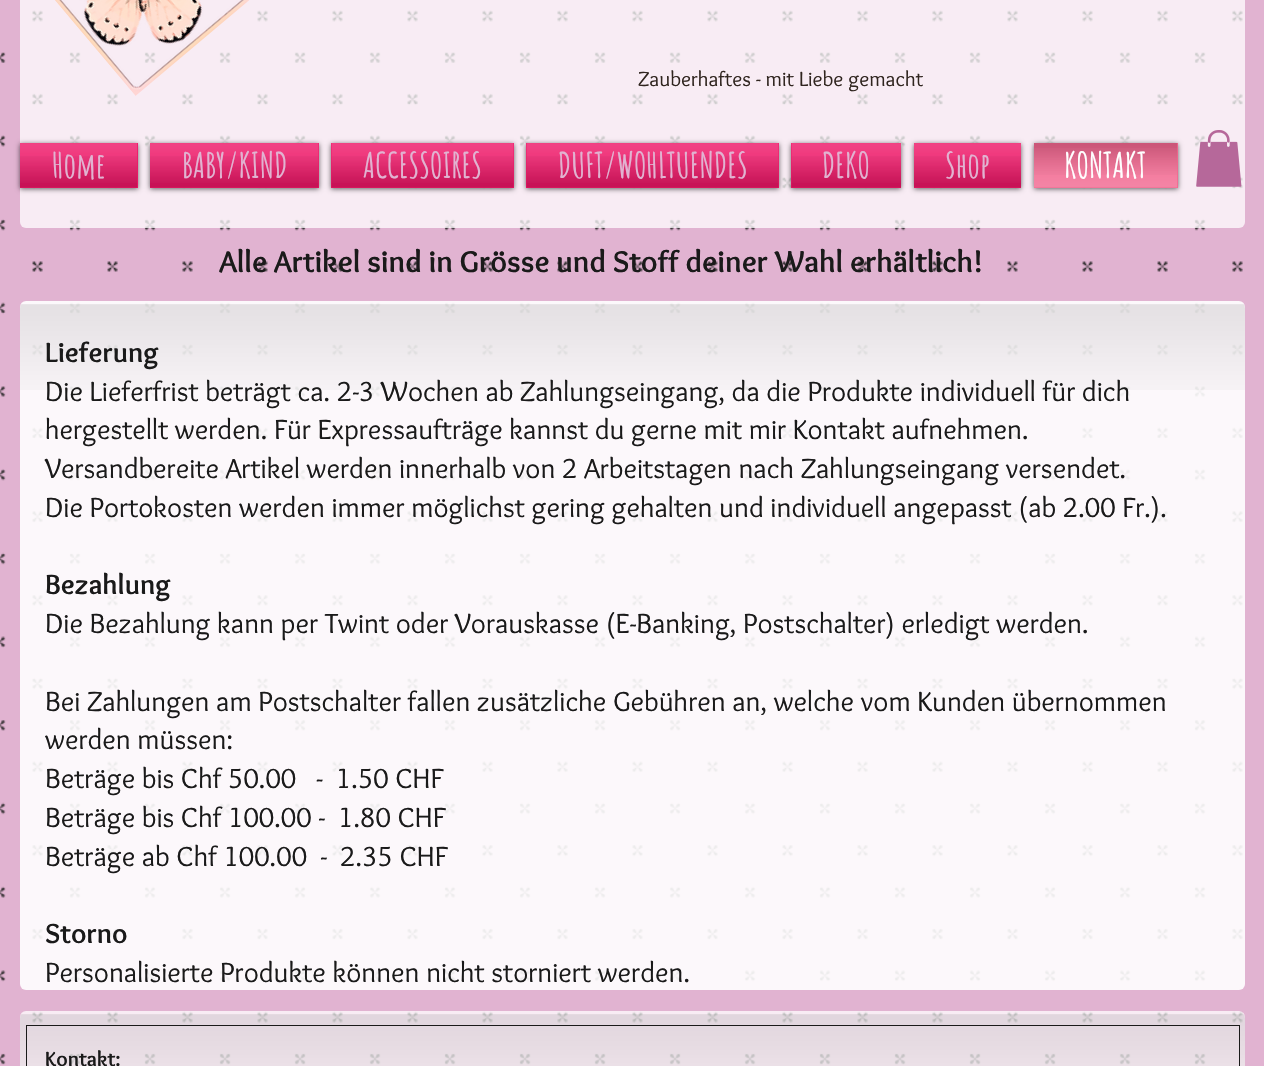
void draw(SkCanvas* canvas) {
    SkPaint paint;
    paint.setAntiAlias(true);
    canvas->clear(0xFFE1B3D1);
    canvas->drawImageRect(SkImages::DeferredFromEncodedData(SkData::MakeFromFileName("img1.png")), SkRect::MakeXYWH(0, 10, 1243, 1055), SkSamplingOptions());
    paint.setColor(0xBFFFFFFF);
    canvas->drawRoundRect(SkRect::MakeXYWH(20, -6, 1225, 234), 6, 6, paint);
    canvas->drawImageRect(SkImages::DeferredFromEncodedData(SkData::MakeFromFileName("img2.png")), SkRect::MakeXYWH(55, 0, 194, 96), SkSamplingOptions());
    SkFont font1(fontMgr->matchFamilyStyle("Overlock", SkFontStyle::Normal()), 21.25f);
    font1.setSubpixel(true);
    paint.setColor(0xFF30251F);
    canvas->drawString("Zauberhaftes - mit Liebe gemacht", 638, 86, font1, paint);
    paint.setColor(0x99000000);
    paint.setMaskFilter(SkMaskFilter::MakeBlur(kNormal_SkBlurStyle, 2.5f));
    canvas->drawRect(SkRect::MakeXYWH(20, 144, 118, 45), paint);
    paint.setMaskFilter(nullptr);
    paint.setColor(0xFFED1566);
    canvas->drawRect(SkRect::MakeXYWH(20, 143, 118, 45), paint);
    canvas->drawImageRect(SkImages::DeferredFromEncodedData(SkData::MakeFromFileName("img3.png")), SkRect::MakeXYWH(20, 143, 118, 40), SkSamplingOptions());
    canvas->drawImageRect(SkImages::DeferredFromEncodedData(SkData::MakeFromFileName("img4.png")), SkRect::MakeXYWH(20, 156, 118, 32), SkSamplingOptions());
    SkFont font2(fontMgr->matchFamilyStyle("Amatic SC", SkFontStyle::Bold()), 35);
    font2.setSubpixel(true);
    paint.setColor(0xFFE1B3D1);
    canvas->drawString("Home", 52, 178, font2, paint);
    paint.setColor(0x99000000);
    paint.setMaskFilter(SkMaskFilter::MakeBlur(kNormal_SkBlurStyle, 2.5f));
    canvas->drawRect(SkRect::MakeXYWH(150, 144, 169, 45), paint);
    paint.setMaskFilter(nullptr);
    paint.setColor(0xFFED1566);
    canvas->drawRect(SkRect::MakeXYWH(150, 143, 169, 45), paint);
    canvas->drawImageRect(SkImages::DeferredFromEncodedData(SkData::MakeFromFileName("img5.png")), SkRect::MakeXYWH(150, 143, 169, 40), SkSamplingOptions());
    canvas->drawImageRect(SkImages::DeferredFromEncodedData(SkData::MakeFromFileName("img6.png")), SkRect::MakeXYWH(150, 156, 169, 32), SkSamplingOptions());
    paint.setColor(0xFFE1B3D1);
    canvas->drawString("BABY/KIND", 182, 178, font2, paint);
    paint.setColor(0x99000000);
    paint.setMaskFilter(SkMaskFilter::MakeBlur(kNormal_SkBlurStyle, 2.5f));
    canvas->drawRect(SkRect::MakeXYWH(331, 144, 183, 45), paint);
    paint.setMaskFilter(nullptr);
    paint.setColor(0xFFED1566);
    canvas->drawRect(SkRect::MakeXYWH(331, 143, 183, 45), paint);
    canvas->drawImageRect(SkImages::DeferredFromEncodedData(SkData::MakeFromFileName("img7.png")), SkRect::MakeXYWH(331, 143, 183, 40), SkSamplingOptions());
    canvas->drawImageRect(SkImages::DeferredFromEncodedData(SkData::MakeFromFileName("img8.png")), SkRect::MakeXYWH(331, 156, 183, 32), SkSamplingOptions());
    paint.setColor(0xFFE1B3D1);
    canvas->drawString("ACCESSOIRES", 363, 178, font2, paint);
    paint.setColor(0x99000000);
    paint.setMaskFilter(SkMaskFilter::MakeBlur(kNormal_SkBlurStyle, 2.5f));
    canvas->drawRect(SkRect::MakeXYWH(526, 144, 253, 45), paint);
    paint.setMaskFilter(nullptr);
    paint.setColor(0xFFED1566);
    canvas->drawRect(SkRect::MakeXYWH(526, 143, 253, 45), paint);
    canvas->drawImageRect(SkImages::DeferredFromEncodedData(SkData::MakeFromFileName("img9.png")), SkRect::MakeXYWH(526, 143, 253, 40), SkSamplingOptions());
    canvas->drawImageRect(SkImages::DeferredFromEncodedData(SkData::MakeFromFileName("img10.png")), SkRect::MakeXYWH(526, 156, 253, 32), SkSamplingOptions());
    paint.setColor(0xFFE1B3D1);
    canvas->drawString("DUFT/WOHLTUENDES", 558, 178, font2, paint);
    paint.setColor(0x99000000);
    paint.setMaskFilter(SkMaskFilter::MakeBlur(kNormal_SkBlurStyle, 2.5f));
    canvas->drawRect(SkRect::MakeXYWH(791, 144, 110, 45), paint);
    paint.setMaskFilter(nullptr);
    paint.setColor(0xFFED1566);
    canvas->drawRect(SkRect::MakeXYWH(791, 143, 110, 45), paint);
    canvas->drawImageRect(SkImages::DeferredFromEncodedData(SkData::MakeFromFileName("img11.png")), SkRect::MakeXYWH(791, 143, 110, 40), SkSamplingOptions());
    canvas->drawImageRect(SkImages::DeferredFromEncodedData(SkData::MakeFromFileName("img12.png")), SkRect::MakeXYWH(791, 156, 110, 32), SkSamplingOptions());
    paint.setColor(0xFFE1B3D1);
    canvas->drawString("DEKO", 822, 178, font2, paint);
    paint.setColor(0x99000000);
    paint.setMaskFilter(SkMaskFilter::MakeBlur(kNormal_SkBlurStyle, 2.5f));
    canvas->drawRect(SkRect::MakeXYWH(914, 144, 107, 45), paint);
    paint.setMaskFilter(nullptr);
    paint.setColor(0xFFED1566);
    canvas->drawRect(SkRect::MakeXYWH(914, 143, 107, 45), paint);
    canvas->drawImageRect(SkImages::DeferredFromEncodedData(SkData::MakeFromFileName("img13.png")), SkRect::MakeXYWH(914, 143, 107, 40), SkSamplingOptions());
    canvas->drawImageRect(SkImages::DeferredFromEncodedData(SkData::MakeFromFileName("img14.png")), SkRect::MakeXYWH(914, 156, 107, 32), SkSamplingOptions());
    paint.setColor(0xFFE1B3D1);
    canvas->drawString("Shop", 945, 178, font2, paint);
    paint.setColor(0x99000000);
    paint.setMaskFilter(SkMaskFilter::MakeBlur(kNormal_SkBlurStyle, 2.5f));
    canvas->drawRect(SkRect::MakeXYWH(1034, 144, 144, 45), paint);
    paint.setMaskFilter(nullptr);
    paint.setColor(0xFFF2668F);
    canvas->drawRect(SkRect::MakeXYWH(1034, 143, 144, 45), paint);
    canvas->drawImageRect(SkImages::DeferredFromEncodedData(SkData::MakeFromFileName("img15.png")), SkRect::MakeXYWH(1034, 143, 144, 32), SkSamplingOptions());
    canvas->drawImageRect(SkImages::DeferredFromEncodedData(SkData::MakeFromFileName("img16.png")), SkRect::MakeXYWH(1034, 148, 144, 40), SkSamplingOptions());
    paint.setColor(0xFFFFFFFF);
    canvas->drawString("KONTAKT", 1064, 178, font2, paint);
    canvas->drawImageRect(SkImages::DeferredFromEncodedData(SkData::MakeFromFileName("img17.png")), SkRect::MakeXYWH(1196, 130, 46, 57), SkSamplingOptions());
    SkFont font3(fontMgr->matchFamilyStyle("Overlock", SkFontStyle::Bold()), 31.25f);
    font3.setSubpixel(true);
    paint.setColor(0xFF1A1A1A);
    canvas->drawString("Alle Artikel sind in Grösse und Stoff deiner Wahl erhältlich!", 219, 272, font3, paint);
    paint.setColor(0xE6FFFFFF);
    canvas->drawRoundRect(SkRect::MakeXYWH(20, 301, 1225, 689), 6, 6, paint);
    canvas->drawImageRect(SkImages::DeferredFromEncodedData(SkData::MakeFromFileName("img18.png")), SkRect::MakeXYWH(20, 304, 1225, 86), SkSamplingOptions());
    SkFont font4(fontMgr->matchFamilyStyle("Overlock", SkFontStyle::Bold()), 28.75f);
    font4.setSubpixel(true);
    paint.setColor(0xFF1A1A1A);
    canvas->drawString("Lieferung", 45, 362, font4, paint);
    SkFont font5(fontMgr->matchFamilyStyle("Overlock", SkFontStyle::Normal()), 28.75f);
    font5.setSubpixel(true);
    canvas->drawString("Die Lieferfrist beträgt ca. 2-3 Wochen ab Zahlungseingang, da die Produkte individuell für dich", 45, 401, font5, paint);
    canvas->drawString("hergestellt werden. Für Expressaufträge kannst du gerne mit mir Kontakt aufnehmen.", 45, 439, font5, paint);
    canvas->drawString("Versandbereite Artikel werden innerhalb von 2 Arbeitstagen nach Zahlungseingang versendet.", 45, 478, font5, paint);
    canvas->drawString("Die Portokosten werden immer möglichst gering gehalten und individuell angepasst (ab 2.00 Fr.).", 45, 517, font5, paint);
    canvas->drawString("Bezahlung", 45, 594, font4, paint);
    canvas->drawString("Die Bezahlung kann per Twint oder Vorauskasse (E-Banking, Postschalter) erledigt werden.", 45, 633, font5, paint);
    canvas->drawString("Bei Zahlungen am Postschalter fallen zusätzliche Gebühren an, welche vom Kunden übernommen", 45, 711, font5, paint);
    canvas->drawString("werden müssen:", 45, 749, font5, paint);
    canvas->drawString("Beträge bis Chf 50.00   -  1.50 CHF", 45, 788, font5, paint);
    canvas->drawString("Beträge bis Chf 100.00 -  1.80 CHF", 45, 827, font5, paint);
    canvas->drawString("Beträge ab Chf 100.00  -  2.35 CHF", 45, 866, font5, paint);
    canvas->drawString("Storno", 45, 943, font4, paint);
    canvas->drawString("Personalisierte Produkte können nicht storniert werden.", 45, 982, font5, paint);
    paint.setColor(0xBFFFFFFF);
    canvas->drawRoundRect(SkRect::MakeXYWH(20, 1011, 1225, 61), 6, 6, paint);
    canvas->drawImageRect(SkImages::DeferredFromEncodedData(SkData::MakeFromFileName("img19.png")), SkRect::MakeXYWH(20, 1014, 1225, 52), SkSamplingOptions());
    paint.setStyle(SkPaint::kStroke_Style);
    paint.setStrokeWidth(1);
    paint.setColor(0xFF1A1A1A);
    canvas->drawRect(SkRect::MakeXYWH(26.5f, 1025.5f, 1213, 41), paint);
    SkFont font6(fontMgr->matchFamilyStyle("Overlock", SkFontStyle::Bold()), 21.25f);
    font6.setSubpixel(true);
    paint.setStyle(SkPaint::kFill_Style);
    canvas->drawString("Kontakt:", 45, 1066, font6, paint);
}
